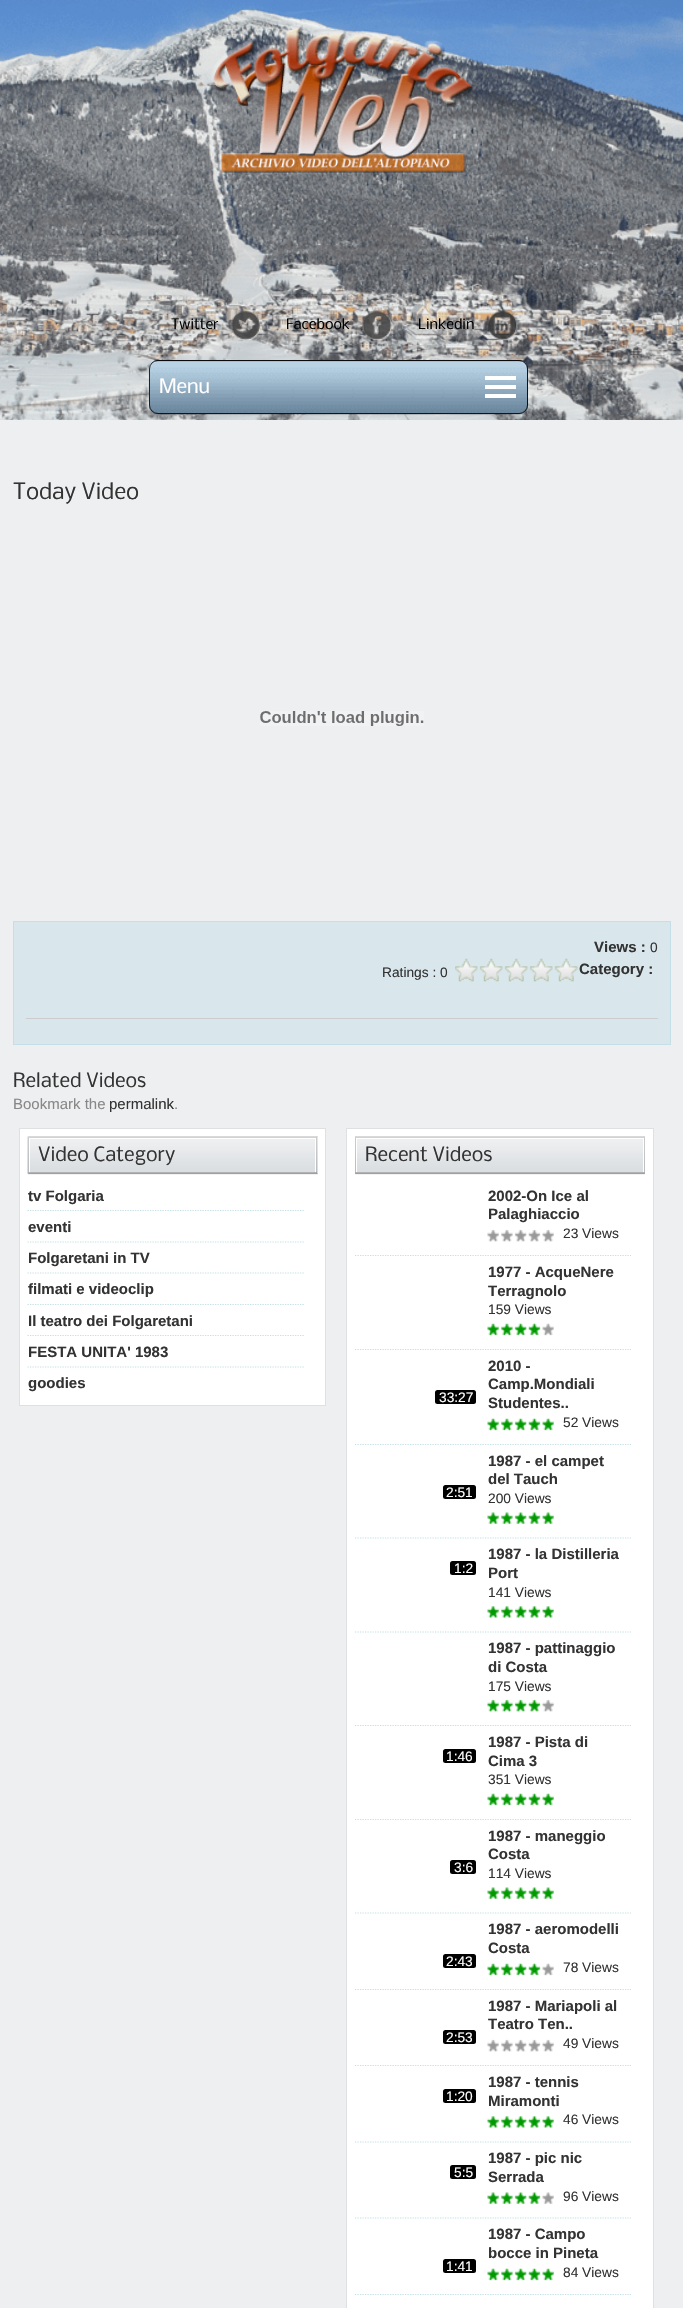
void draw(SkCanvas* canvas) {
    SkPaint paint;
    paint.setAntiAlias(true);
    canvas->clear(0xFFFFFFFF);
    canvas->drawImageRect(SkImages::DeferredFromEncodedData(SkData::MakeFromFileName("img1.png")), SkRect::MakeXYWH(0, 0, 683, 420), SkSamplingOptions());
    canvas->drawImageRect(SkImages::DeferredFromEncodedData(SkData::MakeFromFileName("img2.png")), SkRect::MakeXYWH(211, 24, 264, 149), SkSamplingOptions());
    SkFont font1(fontMgr->matchFamilyStyle("Nobile", SkFontStyle::Normal()), 13.75f);
    font1.setSubpixel(true);
    paint.setColor(0xFF000000);
    canvas->drawString("Twitter", 171, 329, font1, paint);
    canvas->drawImageRect(SkImages::DeferredFromEncodedData(SkData::MakeFromFileName("img3.png")), SkRect::MakeXYWH(231, 310, 31, 30), SkSamplingOptions());
    canvas->drawString("Facebook", 286, 329, font1, paint);
    canvas->drawImageRect(SkImages::DeferredFromEncodedData(SkData::MakeFromFileName("img4.png")), SkRect::MakeXYWH(362, 310, 31, 30), SkSamplingOptions());
    canvas->drawString("Linkedin", 418, 329, font1, paint);
    canvas->drawImageRect(SkImages::DeferredFromEncodedData(SkData::MakeFromFileName("img5.png")), SkRect::MakeXYWH(487, 310, 31, 30), SkSamplingOptions());
    paint.setColor(0x33000002);
    paint.setMaskFilter(SkMaskFilter::MakeBlur(kNormal_SkBlurStyle, 0.5f));
    canvas->drawRoundRect(SkRect::MakeXYWH(149, 361, 379, 54), 9, 9, paint);
    paint.setMaskFilter(nullptr);
    paint.setColor(0xFF363638);
    canvas->drawRoundRect(SkRect::MakeXYWH(149, 360, 379, 54), 9, 9, paint);
    canvas->drawImageRect(SkImages::DeferredFromEncodedData(SkData::MakeFromFileName("img6.png")), SkRect::MakeXYWH(148, 361, 380, 53), SkSamplingOptions());
    paint.setColor(0x33FDFDFF);
    canvas->drawPath(SkPathBuilder().moveTo(158, 362).lineTo(519, 362).cubicTo(523, 362, 526, 366, 526, 370).cubicTo(526, 365, 523, 361, 518, 361).lineTo(158, 361).cubicTo(153, 361, 150, 365, 150, 370).cubicTo(150, 366, 153, 362, 158, 362).close().detach(), paint);
    paint.setStyle(SkPaint::kStroke_Style);
    paint.setStrokeWidth(1);
    paint.setColor(0xCC000002);
    canvas->drawRoundRect(SkRect::MakeXYWH(149.5f, 360.5f, 378, 53), 8.5f, 8.5f, paint);
    SkFont font2(fontMgr->matchFamilyStyle("Nobile", SkFontStyle::Normal()), 18.75f);
    font2.setSubpixel(true);
    paint.setStyle(SkPaint::kFill_Style);
    paint.setColor(0xFFFFFFFF);
    canvas->drawString("Menu", 159, 393, font2, paint);
    canvas->drawRect(SkRect::MakeXYWH(485, 376, 31, 4), paint);
    canvas->drawRect(SkRect::MakeXYWH(485, 385, 31, 4), paint);
    canvas->drawRect(SkRect::MakeXYWH(485, 394, 31, 4), paint);
    paint.setColor(0xFFEEEFF1);
    canvas->drawRect(SkRect::MakeXYWH(0, 420, 683, 1888), paint);
    SkFont font3(fontMgr->matchFamilyStyle("Nobile", SkFontStyle::Normal()), 21.25f);
    font3.setSubpixel(true);
    paint.setColor(0xFF333333);
    canvas->drawString("Today Video", 13, 499, font3, paint);
    canvas->drawImageRect(SkImages::DeferredFromEncodedData(SkData::MakeFromFileName("img7.png")), SkRect::MakeXYWH(260, 711, 164, 15), SkSamplingOptions());
    paint.setColor(0xFFD9E7EC);
    canvas->drawRect(SkRect::MakeXYWH(13.5f, 921.5f, 657, 123), paint);
    paint.setStyle(SkPaint::kStroke_Style);
    paint.setColor(0xFFC4DFE6);
    canvas->drawRect(SkRect::MakeXYWH(13.5f, 921.5f, 657, 123), paint);
    SkFont font4(fontMgr->matchFamilyStyle("Liberation Sans", SkFontStyle::Bold()), 15);
    font4.setSubpixel(true);
    paint.setStyle(SkPaint::kFill_Style);
    paint.setColor(0xFF333333);
    canvas->drawString("Views :", 594, 952, font4, paint);
    SkFont font5(fontMgr->matchFamilyStyle("Liberation Sans", SkFontStyle::Normal()), 13.75f);
    font5.setSubpixel(true);
    canvas->drawString("0", 650, 952, font5, paint);
    canvas->drawString("Ratings : 0", 382, 977, font5, paint);
    canvas->drawImageRect(SkImages::DeferredFromEncodedData(SkData::MakeFromFileName("img8.png")), SkRect::MakeXYWH(455, 958, 123, 24), SkSamplingOptions());
    canvas->drawString("Category :", 579, 974, font4, paint);
    paint.setColor(0xFFCCCCCC);
    canvas->drawRect(SkRect::MakeXYWH(26, 1018, 632, 1), paint);
    paint.setColor(0xFF333333);
    canvas->drawString("Related Videos", 13, 1087, font2, paint);
    SkFont font6(fontMgr->matchFamilyStyle("Liberation Sans", SkFontStyle::Normal()), 15);
    font6.setSubpixel(true);
    paint.setColor(0xFF888888);
    canvas->drawString("Bookmark the", 13, 1109, font6, paint);
    paint.setColor(0xFF333333);
    canvas->drawString("permalink", 109, 1109, font6, paint);
    paint.setColor(0xFF888888);
    canvas->drawString(".", 174, 1109, font6, paint);
    paint.setColor(0xFFFFFFFF);
    canvas->drawRect(SkRect::MakeXYWH(19.5f, 1128.5f, 306, 277), paint);
    paint.setStyle(SkPaint::kStroke_Style);
    paint.setColor(0xFFDFE0E1);
    canvas->drawRect(SkRect::MakeXYWH(19.5f, 1128.5f, 306, 277), paint);
    paint.setStyle(SkPaint::kFill_Style);
    paint.setColor(0xFFF2F2F2);
    canvas->drawPath(SkPathBuilder().moveTo(28, 1174).lineTo(28, 1175).lineTo(318, 1175).lineTo(318, 1138).lineTo(318, 1174).close().detach(), paint);
    canvas->drawImageRect(SkImages::DeferredFromEncodedData(SkData::MakeFromFileName("img9.png")), SkRect::MakeXYWH(27, 1137, 291, 37), SkSamplingOptions());
    paint.setStyle(SkPaint::kStroke_Style);
    paint.setColor(0xFFFFFFFF);
    canvas->drawRect(SkRect::MakeXYWH(29.5f, 1138.5f, 286, 34), paint);
    paint.setStyle(SkPaint::kFill_Style);
    paint.setColor(0x26000002);
    canvas->drawPath(SkPathBuilder().moveTo(28, 1136).lineTo(318, 1136).lineTo(316, 1138).lineTo(29, 1138).close().detach(), paint);
    canvas->drawPath(SkPathBuilder().moveTo(317.5f, 1136).lineTo(317.5f, 1174).lineTo(316, 1172.5f).lineTo(316, 1137.5f).close().detach(), paint);
    paint.setColor(0x4D000002);
    canvas->drawPath(SkPathBuilder().moveTo(318, 1174).lineTo(28, 1174).lineTo(29, 1172).lineTo(316, 1172).close().detach(), paint);
    paint.setColor(0x26000002);
    canvas->drawPath(SkPathBuilder().moveTo(27.5f, 1174).lineTo(27.5f, 1136).lineTo(29, 1137.5f).lineTo(29, 1172.5f).close().detach(), paint);
    paint.setColor(0xFF333333);
    canvas->drawString("Video Category", 38, 1161, font2, paint);
    canvas->drawString("tv Folgaria", 28, 1201, font4, paint);
    paint.setStyle(SkPaint::kStroke_Style);
    paint.setStrokeWidth(1.2f);
    paint.setColor(0xFFC4DFE6);
    paint.setPathEffect(SkDashPathEffect::Make({{1.25f, 1.25f}}, 0));
    canvas->drawPath(SkPathBuilder().moveTo(27.5f, 1210.5f).lineTo(305, 1210.5f).detach(), paint);
    paint.setPathEffect(nullptr);
    paint.setStyle(SkPaint::kFill_Style);
    paint.setColor(0xFF333333);
    canvas->drawString("eventi", 28, 1232, font4, paint);
    paint.setStyle(SkPaint::kStroke_Style);
    paint.setColor(0xFFC4DFE6);
    paint.setPathEffect(SkDashPathEffect::Make({{1.25f, 1.25f}}, 0));
    canvas->drawPath(SkPathBuilder().moveTo(27.5f, 1242).lineTo(305, 1242).detach(), paint);
    paint.setPathEffect(nullptr);
    paint.setStyle(SkPaint::kFill_Style);
    paint.setColor(0xFF333333);
    canvas->drawString("Folgaretani in TV", 28, 1263, font4, paint);
    paint.setStyle(SkPaint::kStroke_Style);
    paint.setColor(0xFFC4DFE6);
    paint.setPathEffect(SkDashPathEffect::Make({{1.25f, 1.25f}}, 0));
    canvas->drawPath(SkPathBuilder().moveTo(27.5f, 1273).lineTo(305, 1273).detach(), paint);
    paint.setPathEffect(nullptr);
    paint.setStyle(SkPaint::kFill_Style);
    paint.setColor(0xFF333333);
    canvas->drawString("filmati e videoclip", 28, 1294, font4, paint);
    paint.setStyle(SkPaint::kStroke_Style);
    paint.setColor(0xFFC4DFE6);
    paint.setPathEffect(SkDashPathEffect::Make({{1.25f, 1.25f}}, 0));
    canvas->drawPath(SkPathBuilder().moveTo(27.5f, 1304.5f).lineTo(305, 1304.5f).detach(), paint);
    paint.setPathEffect(nullptr);
    paint.setStyle(SkPaint::kFill_Style);
    paint.setColor(0xFF333333);
    canvas->drawString("Il teatro dei Folgaretani", 28, 1326, font4, paint);
    paint.setStyle(SkPaint::kStroke_Style);
    paint.setColor(0xFFC4DFE6);
    paint.setPathEffect(SkDashPathEffect::Make({{1.25f, 1.25f}}, 0));
    canvas->drawPath(SkPathBuilder().moveTo(27.5f, 1335.5f).lineTo(305, 1335.5f).detach(), paint);
    paint.setPathEffect(nullptr);
    paint.setStyle(SkPaint::kFill_Style);
    paint.setColor(0xFF333333);
    canvas->drawString("FESTA UNITA' 1983", 28, 1357, font4, paint);
    paint.setStyle(SkPaint::kStroke_Style);
    paint.setColor(0xFFC4DFE6);
    paint.setPathEffect(SkDashPathEffect::Make({{1.25f, 1.25f}}, 0));
    canvas->drawPath(SkPathBuilder().moveTo(27.5f, 1367).lineTo(305, 1367).detach(), paint);
    paint.setPathEffect(nullptr);
    paint.setStyle(SkPaint::kFill_Style);
    paint.setColor(0xFF333333);
    canvas->drawString("goodies", 28, 1388, font4, paint);
    paint.setColor(0xFFFFFFFF);
    canvas->drawRect(SkRect::MakeXYWH(346.5f, 1128.5f, 307, 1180), paint);
    paint.setStyle(SkPaint::kStroke_Style);
    paint.setStrokeWidth(1);
    paint.setColor(0xFFDFE0E1);
    canvas->drawRect(SkRect::MakeXYWH(346.5f, 1128.5f, 307, 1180), paint);
    paint.setStyle(SkPaint::kFill_Style);
    paint.setColor(0xFFF2F2F2);
    canvas->drawRect(SkRect::MakeXYWH(355, 1174, 290, 1), paint);
    canvas->drawImageRect(SkImages::DeferredFromEncodedData(SkData::MakeFromFileName("img10.png")), SkRect::MakeXYWH(355, 1137, 290, 37), SkSamplingOptions());
    paint.setStyle(SkPaint::kStroke_Style);
    paint.setColor(0xFFFFFFFF);
    canvas->drawRect(SkRect::MakeXYWH(356.5f, 1138.5f, 287, 34), paint);
    paint.setStyle(SkPaint::kFill_Style);
    paint.setColor(0x26000002);
    canvas->drawPath(SkPathBuilder().moveTo(355, 1136).lineTo(645, 1136).lineTo(644, 1138).lineTo(356, 1138).close().detach(), paint);
    canvas->drawPath(SkPathBuilder().moveTo(645, 1136).lineTo(645, 1174).lineTo(644, 1172.5f).lineTo(644, 1137.5f).close().detach(), paint);
    paint.setColor(0x4D000002);
    canvas->drawPath(SkPathBuilder().moveTo(645, 1174).lineTo(355, 1174).lineTo(356, 1172).lineTo(644, 1172).close().detach(), paint);
    paint.setColor(0x26000002);
    canvas->drawPath(SkPathBuilder().moveTo(355, 1174).lineTo(355, 1136).lineTo(356, 1137.5f).lineTo(356, 1172.5f).close().detach(), paint);
    paint.setColor(0xFF333333);
    canvas->drawString("Recent Videos", 365, 1161, font2, paint);
    canvas->drawString("2002-On Ice al", 488, 1201, font4, paint);
    canvas->drawString("Palaghiaccio", 488, 1219, font4, paint);
    canvas->drawImageRect(SkImages::DeferredFromEncodedData(SkData::MakeFromFileName("img11.png")), SkRect::MakeXYWH(487, 1229, 67, 13), SkSamplingOptions());
    canvas->drawString("23 Views", 563, 1238, font5, paint);
    paint.setStyle(SkPaint::kStroke_Style);
    paint.setStrokeWidth(1.2f);
    paint.setColor(0xFFC4DFE6);
    paint.setPathEffect(SkDashPathEffect::Make({{1.25f, 1.25f}}, 0));
    canvas->drawPath(SkPathBuilder().moveTo(355, 1255.5f).lineTo(631, 1255.5f).detach(), paint);
    paint.setPathEffect(nullptr);
    paint.setStyle(SkPaint::kFill_Style);
    paint.setColor(0xFF333333);
    canvas->drawString("1977 - AcqueNere", 488, 1277, font4, paint);
    canvas->drawString("Terragnolo", 488, 1296, font4, paint);
    canvas->drawString("159 Views", 488, 1314, font5, paint);
    canvas->drawImageRect(SkImages::DeferredFromEncodedData(SkData::MakeFromFileName("img12.png")), SkRect::MakeXYWH(487, 1323, 67, 13), SkSamplingOptions());
    paint.setStyle(SkPaint::kStroke_Style);
    paint.setColor(0xFFC4DFE6);
    paint.setPathEffect(SkDashPathEffect::Make({{1.25f, 1.25f}}, 0));
    canvas->drawPath(SkPathBuilder().moveTo(355, 1349.5f).lineTo(631, 1349.5f).detach(), paint);
    paint.setPathEffect(nullptr);
    paint.setStyle(SkPaint::kFill_Style);
    paint.setColor(0xFF000000);
    canvas->drawRoundRect(SkRect::MakeXYWH(435, 1390, 41, 14), 2.5f, 2.5f, paint);
    paint.setColor(0xFFFFFFFF);
    canvas->drawString("33:27", 439, 1402, font5, paint);
    paint.setColor(0xFF333333);
    canvas->drawString("2010 -", 488, 1371, font4, paint);
    canvas->drawString("Camp.Mondiali", 488, 1389, font4, paint);
    canvas->drawString("Studentes..", 488, 1408, font4, paint);
    canvas->drawImageRect(SkImages::DeferredFromEncodedData(SkData::MakeFromFileName("img13.png")), SkRect::MakeXYWH(487, 1418, 67, 13), SkSamplingOptions());
    canvas->drawString("52 Views", 563, 1427, font5, paint);
    paint.setStyle(SkPaint::kStroke_Style);
    paint.setColor(0xFFC4DFE6);
    paint.setPathEffect(SkDashPathEffect::Make({{1.25f, 1.25f}}, 0));
    canvas->drawPath(SkPathBuilder().moveTo(355, 1444.5f).lineTo(631, 1444.5f).detach(), paint);
    paint.setPathEffect(nullptr);
    paint.setStyle(SkPaint::kFill_Style);
    paint.setColor(0xFF000000);
    canvas->drawRoundRect(SkRect::MakeXYWH(443, 1485, 33, 14), 2.5f, 2.5f, paint);
    paint.setColor(0xFFFFFFFF);
    canvas->drawString("2:51", 446, 1497, font5, paint);
    paint.setColor(0xFF333333);
    canvas->drawString("1987 - el campet", 488, 1466, font4, paint);
    canvas->drawString("del Tauch", 488, 1484, font4, paint);
    canvas->drawString("200 Views", 488, 1503, font5, paint);
    canvas->drawImageRect(SkImages::DeferredFromEncodedData(SkData::MakeFromFileName("img14.png")), SkRect::MakeXYWH(487, 1512, 67, 12), SkSamplingOptions());
    paint.setStyle(SkPaint::kStroke_Style);
    paint.setColor(0xFFC4DFE6);
    paint.setPathEffect(SkDashPathEffect::Make({{1.25f, 1.25f}}, 0));
    canvas->drawPath(SkPathBuilder().moveTo(355, 1538).lineTo(631, 1538).detach(), paint);
    paint.setPathEffect(nullptr);
    paint.setStyle(SkPaint::kFill_Style);
    paint.setColor(0xFF000000);
    canvas->drawRoundRect(SkRect::MakeXYWH(450, 1561, 26, 14), 2.5f, 2.5f, paint);
    paint.setColor(0xFFFFFFFF);
    canvas->drawString("1:2", 454, 1573, font5, paint);
    paint.setColor(0xFF333333);
    canvas->drawString("1987 - la Distilleria", 488, 1559, font4, paint);
    canvas->drawString("Port", 488, 1578, font4, paint);
    canvas->drawString("141 Views", 488, 1597, font5, paint);
    canvas->drawImageRect(SkImages::DeferredFromEncodedData(SkData::MakeFromFileName("img15.png")), SkRect::MakeXYWH(487, 1606, 67, 12), SkSamplingOptions());
    paint.setStyle(SkPaint::kStroke_Style);
    paint.setColor(0xFFC4DFE6);
    paint.setPathEffect(SkDashPathEffect::Make({{1.25f, 1.25f}}, 0));
    canvas->drawPath(SkPathBuilder().moveTo(355, 1632).lineTo(631, 1632).detach(), paint);
    paint.setPathEffect(nullptr);
    paint.setStyle(SkPaint::kFill_Style);
    paint.setColor(0xFF333333);
    canvas->drawString("1987 - pattinaggio", 488, 1653, font4, paint);
    canvas->drawString("di Costa", 488, 1672, font4, paint);
    canvas->drawString("175 Views", 488, 1691, font5, paint);
    canvas->drawImageRect(SkImages::DeferredFromEncodedData(SkData::MakeFromFileName("img16.png")), SkRect::MakeXYWH(487, 1699, 67, 13), SkSamplingOptions());
    paint.setStyle(SkPaint::kStroke_Style);
    paint.setColor(0xFFC4DFE6);
    paint.setPathEffect(SkDashPathEffect::Make({{1.25f, 1.25f}}, 0));
    canvas->drawPath(SkPathBuilder().moveTo(355, 1725.5f).lineTo(631, 1725.5f).detach(), paint);
    paint.setPathEffect(nullptr);
    paint.setStyle(SkPaint::kFill_Style);
    paint.setColor(0xFF000000);
    canvas->drawRoundRect(SkRect::MakeXYWH(443, 1749, 33, 14), 2.5f, 2.5f, paint);
    paint.setColor(0xFFFFFFFF);
    canvas->drawString("1:46", 446, 1761, font5, paint);
    paint.setColor(0xFF333333);
    canvas->drawString("1987 - Pista di", 488, 1747, font4, paint);
    canvas->drawString("Cima 3", 488, 1766, font4, paint);
    canvas->drawString("351 Views", 488, 1784, font5, paint);
    canvas->drawImageRect(SkImages::DeferredFromEncodedData(SkData::MakeFromFileName("img13.png")), SkRect::MakeXYWH(487, 1793, 67, 13), SkSamplingOptions());
    paint.setStyle(SkPaint::kStroke_Style);
    paint.setColor(0xFFC4DFE6);
    paint.setPathEffect(SkDashPathEffect::Make({{1.25f, 1.25f}}, 0));
    canvas->drawPath(SkPathBuilder().moveTo(355, 1819.5f).lineTo(631, 1819.5f).detach(), paint);
    paint.setPathEffect(nullptr);
    paint.setStyle(SkPaint::kFill_Style);
    paint.setColor(0xFF000000);
    canvas->drawRoundRect(SkRect::MakeXYWH(450, 1860, 26, 14), 2.5f, 2.5f, paint);
    paint.setColor(0xFFFFFFFF);
    canvas->drawString("3:6", 454, 1872, font5, paint);
    paint.setColor(0xFF333333);
    canvas->drawString("1987 - maneggio", 488, 1841, font4, paint);
    canvas->drawString("Costa", 488, 1859, font4, paint);
    canvas->drawString("114 Views", 488, 1878, font5, paint);
    canvas->drawImageRect(SkImages::DeferredFromEncodedData(SkData::MakeFromFileName("img14.png")), SkRect::MakeXYWH(487, 1887, 67, 12), SkSamplingOptions());
    paint.setStyle(SkPaint::kStroke_Style);
    paint.setColor(0xFFC4DFE6);
    paint.setPathEffect(SkDashPathEffect::Make({{1.25f, 1.25f}}, 0));
    canvas->drawPath(SkPathBuilder().moveTo(355, 1913).lineTo(631, 1913).detach(), paint);
    paint.setPathEffect(nullptr);
    paint.setStyle(SkPaint::kFill_Style);
    paint.setColor(0xFF000000);
    canvas->drawRoundRect(SkRect::MakeXYWH(443, 1954, 33, 14), 2.5f, 2.5f, paint);
    paint.setColor(0xFFFFFFFF);
    canvas->drawString("2:43", 446, 1966, font5, paint);
    paint.setColor(0xFF333333);
    canvas->drawString("1987 - aeromodelli", 488, 1934, font4, paint);
    canvas->drawString("Costa", 488, 1953, font4, paint);
    canvas->drawImageRect(SkImages::DeferredFromEncodedData(SkData::MakeFromFileName("img12.png")), SkRect::MakeXYWH(487, 1963, 67, 13), SkSamplingOptions());
    canvas->drawString("78 Views", 563, 1972, font5, paint);
    paint.setStyle(SkPaint::kStroke_Style);
    paint.setColor(0xFFC4DFE6);
    paint.setPathEffect(SkDashPathEffect::Make({{1.25f, 1.25f}}, 0));
    canvas->drawPath(SkPathBuilder().moveTo(355, 1989.5f).lineTo(631, 1989.5f).detach(), paint);
    paint.setPathEffect(nullptr);
    paint.setStyle(SkPaint::kFill_Style);
    paint.setColor(0xFF000000);
    canvas->drawRoundRect(SkRect::MakeXYWH(443, 2030, 33, 14), 2.5f, 2.5f, paint);
    paint.setColor(0xFFFFFFFF);
    canvas->drawString("2:53", 446, 2042, font5, paint);
    paint.setColor(0xFF333333);
    canvas->drawString("1987 - Mariapoli al", 488, 2011, font4, paint);
    canvas->drawString("Teatro Ten..", 488, 2029, font4, paint);
    canvas->drawImageRect(SkImages::DeferredFromEncodedData(SkData::MakeFromFileName("img11.png")), SkRect::MakeXYWH(487, 2039, 67, 13), SkSamplingOptions());
    canvas->drawString("49 Views", 563, 2048, font5, paint);
    paint.setStyle(SkPaint::kStroke_Style);
    paint.setColor(0xFFC4DFE6);
    paint.setPathEffect(SkDashPathEffect::Make({{1.25f, 1.25f}}, 0));
    canvas->drawPath(SkPathBuilder().moveTo(355, 2065.5f).lineTo(631, 2065.5f).detach(), paint);
    paint.setPathEffect(nullptr);
    paint.setStyle(SkPaint::kFill_Style);
    paint.setColor(0xFF000000);
    canvas->drawRoundRect(SkRect::MakeXYWH(443, 2089, 33, 14), 2.5f, 2.5f, paint);
    paint.setColor(0xFFFFFFFF);
    canvas->drawString("1:20", 446, 2101, font5, paint);
    paint.setColor(0xFF333333);
    canvas->drawString("1987 - tennis", 488, 2087, font4, paint);
    canvas->drawString("Miramonti", 488, 2106, font4, paint);
    canvas->drawImageRect(SkImages::DeferredFromEncodedData(SkData::MakeFromFileName("img15.png")), SkRect::MakeXYWH(487, 2116, 67, 12), SkSamplingOptions());
    canvas->drawString("46 Views", 563, 2124, font5, paint);
    paint.setStyle(SkPaint::kStroke_Style);
    paint.setColor(0xFFC4DFE6);
    paint.setPathEffect(SkDashPathEffect::Make({{1.25f, 1.25f}}, 0));
    canvas->drawPath(SkPathBuilder().moveTo(355, 2142).lineTo(631, 2142).detach(), paint);
    paint.setPathEffect(nullptr);
    paint.setStyle(SkPaint::kFill_Style);
    paint.setColor(0xFF000000);
    canvas->drawRoundRect(SkRect::MakeXYWH(450, 2165, 26, 14), 2.5f, 2.5f, paint);
    paint.setColor(0xFFFFFFFF);
    canvas->drawString("5:5", 454, 2177, font5, paint);
    paint.setColor(0xFF333333);
    canvas->drawString("1987 - pic nic", 488, 2163, font4, paint);
    canvas->drawString("Serrada", 488, 2182, font4, paint);
    canvas->drawImageRect(SkImages::DeferredFromEncodedData(SkData::MakeFromFileName("img17.png")), SkRect::MakeXYWH(487, 2192, 67, 12), SkSamplingOptions());
    canvas->drawString("96 Views", 563, 2201, font5, paint);
    paint.setStyle(SkPaint::kStroke_Style);
    paint.setColor(0xFFC4DFE6);
    paint.setPathEffect(SkDashPathEffect::Make({{1.25f, 1.25f}}, 0));
    canvas->drawPath(SkPathBuilder().moveTo(355, 2218).lineTo(631, 2218).detach(), paint);
    paint.setPathEffect(nullptr);
    paint.setStyle(SkPaint::kFill_Style);
    paint.setColor(0xFF000000);
    canvas->drawRoundRect(SkRect::MakeXYWH(443, 2259, 33, 14), 2.5f, 2.5f, paint);
    paint.setColor(0xFFFFFFFF);
    canvas->drawString("1:41", 446, 2271, font5, paint);
    paint.setColor(0xFF333333);
    canvas->drawString("1987 - Campo", 488, 2239, font4, paint);
    canvas->drawString("bocce in Pineta", 488, 2258, font4, paint);
    canvas->drawImageRect(SkImages::DeferredFromEncodedData(SkData::MakeFromFileName("img13.png")), SkRect::MakeXYWH(487, 2268, 67, 13), SkSamplingOptions());
    canvas->drawString("84 Views", 563, 2277, font5, paint);
    paint.setStyle(SkPaint::kStroke_Style);
    paint.setColor(0xFFC4DFE6);
    paint.setPathEffect(SkDashPathEffect::Make({{1.25f, 1.25f}}, 0));
    canvas->drawPath(SkPathBuilder().moveTo(355, 2294.5f).lineTo(631, 2294.5f).detach(), paint);
    paint.setPathEffect(nullptr);
}
